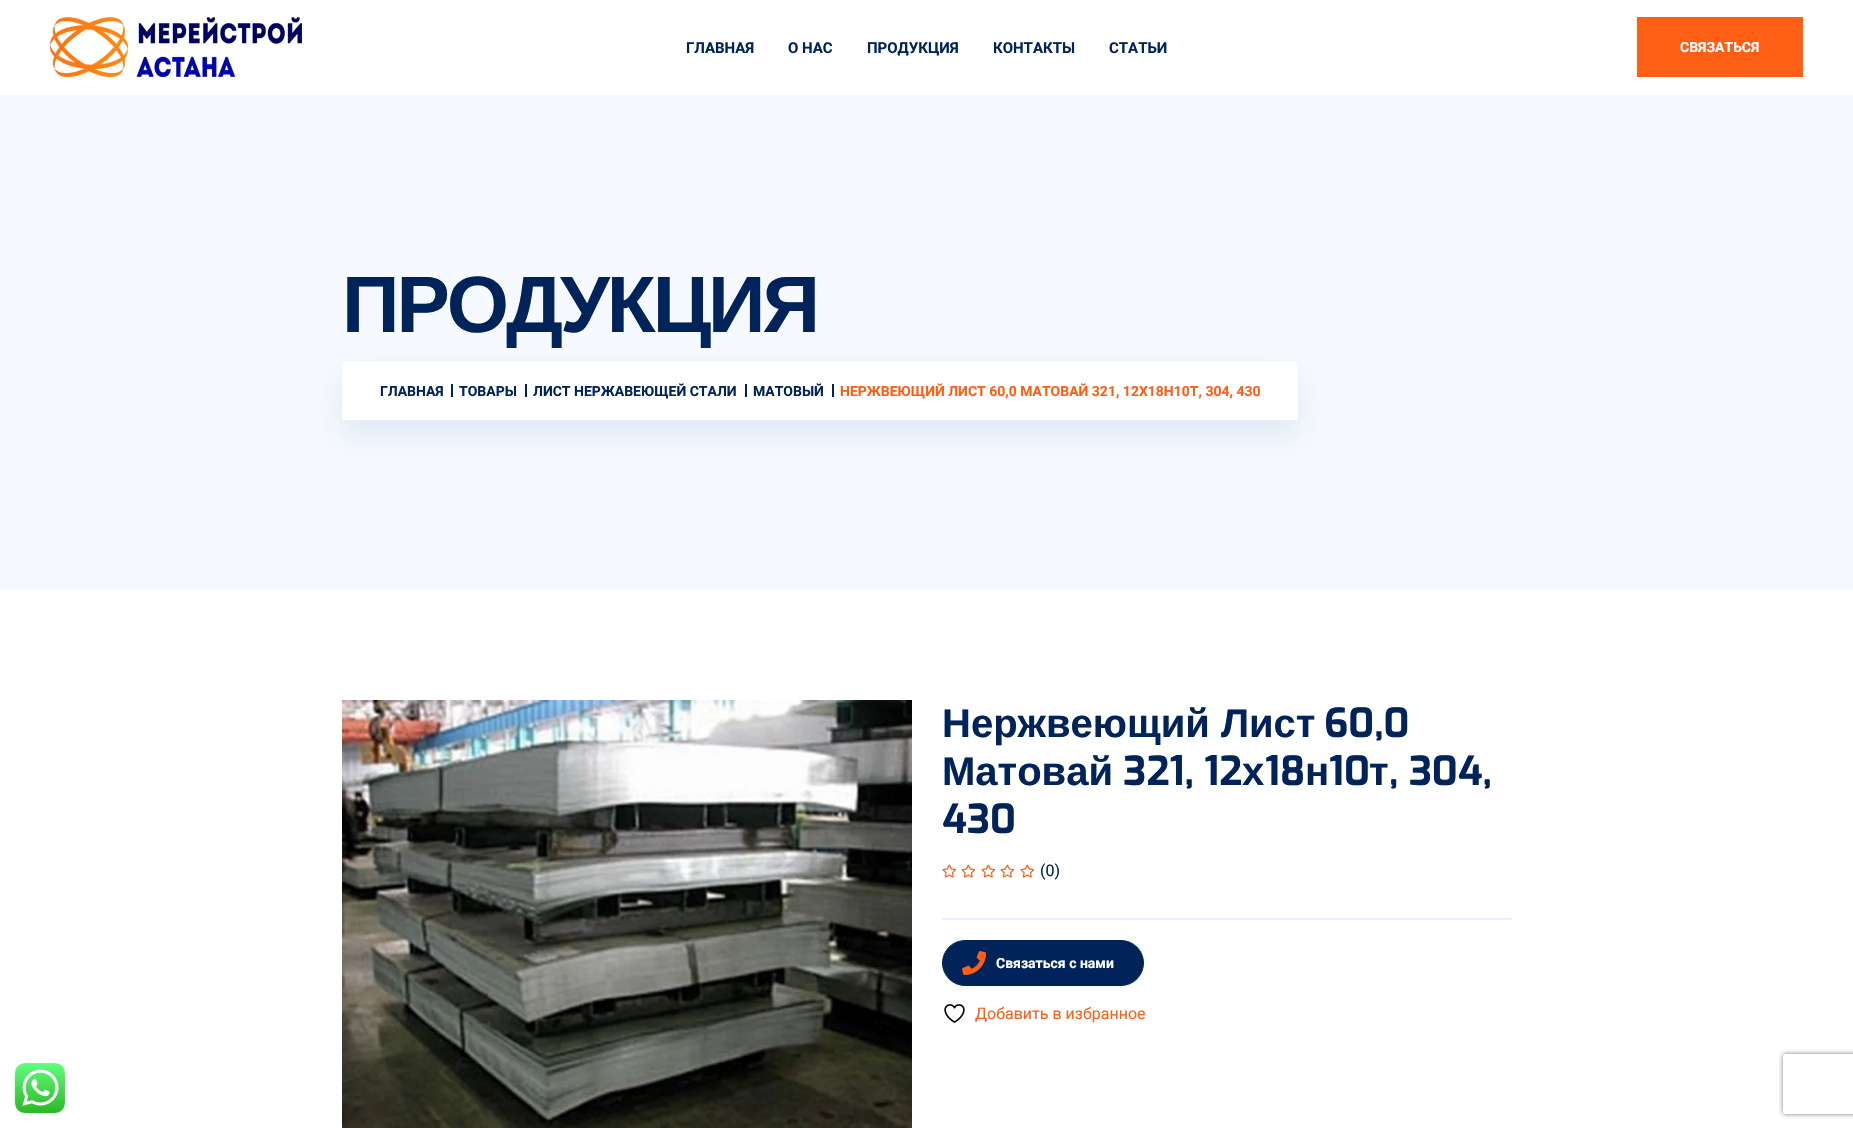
void draw(SkCanvas* canvas) {
    SkPaint paint;
    paint.setAntiAlias(true);
    auto spacedText = [&](const char* s, float x, float y, const SkFont& font, const SkPaint& ink, float letter, float word) {
        std::vector<SkGlyphID> glyphs(font.countText(s, strlen(s), SkTextEncoding::kUTF8));
        std::vector<float> xs(glyphs.size());
        font.textToGlyphs(s, strlen(s), SkTextEncoding::kUTF8, glyphs);
        font.getXPos(glyphs, xs, x);
        float extra = 0;
        for (size_t i = 0; i < glyphs.size(); i++) {
            xs[i] += extra;
            extra += letter + word * (glyphs[i] == font.unicharToGlyph(' '));
        }
        canvas->drawTextBlob(SkTextBlob::MakeFromPosHGlyphs(glyphs, xs, y, font), 0, 0, ink);
    };
    canvas->clear(0xFFFFFFFF);
    canvas->drawImageRect(SkImages::DeferredFromEncodedData(SkData::MakeFromFileName("img1.png")), SkRect::MakeXYWH(50, 17, 252, 60), SkSamplingOptions());
    SkFont font1(fontMgr->matchFamilyStyle("Roboto", SkFontStyle::Bold()), 15);
    font1.setSubpixel(true);
    paint.setColor(0xFF00235A);
    canvas->drawString("ГЛАВНАЯ", 686, 53, font1, paint);
    canvas->drawString("О НАС", 788, 53, font1, paint);
    canvas->drawString("ПРОДУКЦИЯ", 867, 53, font1, paint);
    canvas->drawString("КОНТАКТЫ", 993, 53, font1, paint);
    canvas->drawString("СТАТЬИ", 1109, 53, font1, paint);
    paint.setColor(0xFFFF5E14);
    canvas->drawRect(SkRect::MakeXYWH(1637, 17, 166, 60), paint);
    SkFont font2(fontMgr->matchFamilyStyle("Roboto", SkFontStyle::Bold()), 14);
    font2.setSubpixel(true);
    paint.setColor(0xFFFFFFFF);
    canvas->drawString("СВЯЗАТЬСЯ", 1680, 52, font2, paint);
    paint.setColor(0xFFF6F9FF);
    canvas->drawRect(SkRect::MakeXYWH(0, 95, 1853, 495), paint);
    SkFont font3(fontMgr->matchFamilyStyle("Liberation Sans", SkFontStyle::Bold()), 80);
    font3.setSubpixel(true);
    paint.setColor(0xFF00235A);
    spacedText("ПРОДУКЦИЯ", 342, 332, font3, paint, -3, 0);
    paint.setColor(0x1A20557D);
    paint.setMaskFilter(SkMaskFilter::MakeBlur(kNormal_SkBlurStyle, 16));
    canvas->drawRect(SkRect::MakeXYWH(342, 378, 956, 58), paint);
    paint.setMaskFilter(nullptr);
    paint.setColor(0xFFFFFFFF);
    canvas->drawRect(SkRect::MakeXYWH(342, 362, 956, 58), paint);
    paint.setColor(0xFF00235A);
    canvas->drawString("ГЛАВНАЯ", 380, 396, font2, paint);
    canvas->drawRect(SkRect::MakeXYWH(451, 384, 2, 13), paint);
    canvas->drawString("ТОВАРЫ", 459, 396, font2, paint);
    canvas->drawRect(SkRect::MakeXYWH(525, 384, 2, 13), paint);
    canvas->drawString("ЛИСТ НЕРЖАВЕЮЩЕЙ СТАЛИ", 533, 396, font2, paint);
    canvas->drawRect(SkRect::MakeXYWH(745, 384, 2, 13), paint);
    canvas->drawString("МАТОВЫЙ", 753, 396, font2, paint);
    canvas->drawRect(SkRect::MakeXYWH(832, 384, 2, 13), paint);
    paint.setColor(0xFFFF5E14);
    canvas->drawString("НЕРЖВЕЮЩИЙ ЛИСТ 60,0 МАТОВАЙ 321, 12Х18Н10Т, 304, 430", 840, 396, font2, paint);
    canvas->drawImageRect(SkImages::DeferredFromEncodedData(SkData::MakeFromFileName("img2.png")), SkRect::MakeXYWH(342, 700, 570, 428), SkSamplingOptions());
    SkFont font4(fontMgr->matchFamilyStyle("Liberation Sans", SkFontStyle::Bold()), 40);
    font4.setSubpixel(true);
    paint.setColor(0xFF00235A);
    canvas->drawString("Нержвеющий Лист", 942, 737, font4, paint);
    SkFont font5(fontMgr->matchFamilyStyle("Exo", SkFontStyle::Bold()), 40);
    font5.setSubpixel(true);
    canvas->drawString("60,0", 1324, 737, font5, paint);
    canvas->drawString("Матовай", 942, 785, font4, paint);
    canvas->drawString("321, 12", 1123, 785, font5, paint);
    canvas->drawString("х", 1242, 785, font4, paint);
    canvas->drawString("18", 1265, 785, font5, paint);
    canvas->drawString("н", 1305, 785, font4, paint);
    canvas->drawString("10", 1329, 785, font5, paint);
    canvas->drawString("т", 1369, 785, font4, paint);
    canvas->drawString(", 304,", 1389, 785, font5, paint);
    canvas->drawString("430", 942, 833, font5, paint);
    canvas->drawImageRect(SkImages::DeferredFromEncodedData(SkData::MakeFromFileName("img3.png")), SkRect::MakeXYWH(942, 864, 15, 14), SkSamplingOptions());
    canvas->drawImageRect(SkImages::DeferredFromEncodedData(SkData::MakeFromFileName("img3.png")), SkRect::MakeXYWH(961, 864, 15, 14), SkSamplingOptions());
    canvas->drawImageRect(SkImages::DeferredFromEncodedData(SkData::MakeFromFileName("img3.png")), SkRect::MakeXYWH(981, 864, 15, 14), SkSamplingOptions());
    canvas->drawImageRect(SkImages::DeferredFromEncodedData(SkData::MakeFromFileName("img3.png")), SkRect::MakeXYWH(1000, 864, 15, 14), SkSamplingOptions());
    canvas->drawImageRect(SkImages::DeferredFromEncodedData(SkData::MakeFromFileName("img3.png")), SkRect::MakeXYWH(1020, 864, 15, 14), SkSamplingOptions());
    SkFont font6(fontMgr->matchFamilyStyle("Roboto", SkFontStyle::Normal()), 16);
    font6.setSubpixel(true);
    canvas->drawString("(0)", 1040, 876, font6, paint);
    paint.setColor(0xFFEAEDFF);
    canvas->drawRect(SkRect::MakeXYWH(942, 918, 570, 2), paint);
    paint.setColor(0xFF00235A);
    canvas->drawRoundRect(SkRect::MakeXYWH(942.5f, 940.5f, 201, 45), 22.5f, 22.5f, paint);
    paint.setStyle(SkPaint::kStroke_Style);
    paint.setStrokeWidth(1);
    canvas->drawRoundRect(SkRect::MakeXYWH(942.5f, 940.5f, 201, 45), 22.5f, 22.5f, paint);
    canvas->drawImageRect(SkImages::DeferredFromEncodedData(SkData::MakeFromFileName("img4.png")), SkRect::MakeXYWH(962, 951, 25, 24), SkSamplingOptions());
    paint.setStyle(SkPaint::kFill_Style);
    paint.setColor(0xFFFFFFFF);
    canvas->drawString("Связаться с нами", 996, 968, font2, paint);
    canvas->drawImageRect(SkImages::DeferredFromEncodedData(SkData::MakeFromFileName("img5.png")), SkRect::MakeXYWH(944, 1004, 21, 19), SkSamplingOptions());
    paint.setColor(0xFFFF5E14);
    canvas->drawString("Добавить в избранное", 975, 1019, font6, paint);
    canvas->drawImageRect(SkImages::DeferredFromEncodedData(SkData::MakeFromFileName("img6.png")), SkRect::MakeXYWH(15, 1063, 50, 50), SkSamplingOptions());
    canvas->save();
    canvas->clipPath(SkPathBuilder(SkPathFillType::kEvenOdd).moveTo(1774, 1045).lineTo(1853, 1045).lineTo(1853, 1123).lineTo(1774, 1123).close().moveTo(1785, 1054).lineTo(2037, 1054).cubicTo(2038, 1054, 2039, 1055, 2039, 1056).lineTo(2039, 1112).cubicTo(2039, 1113, 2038, 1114, 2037, 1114).lineTo(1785, 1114).cubicTo(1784, 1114, 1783, 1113, 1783, 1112).lineTo(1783, 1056).cubicTo(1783, 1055, 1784, 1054, 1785, 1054).close().detach(), true);
    paint.setColor(0xFF808080);
    paint.setMaskFilter(SkMaskFilter::MakeBlur(kNormal_SkBlurStyle, 2.5f));
    canvas->drawRoundRect(SkRect::MakeXYWH(1783, 1054, 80, 60), 2, 2, paint);
    paint.setMaskFilter(nullptr);
    canvas->restore();
}
